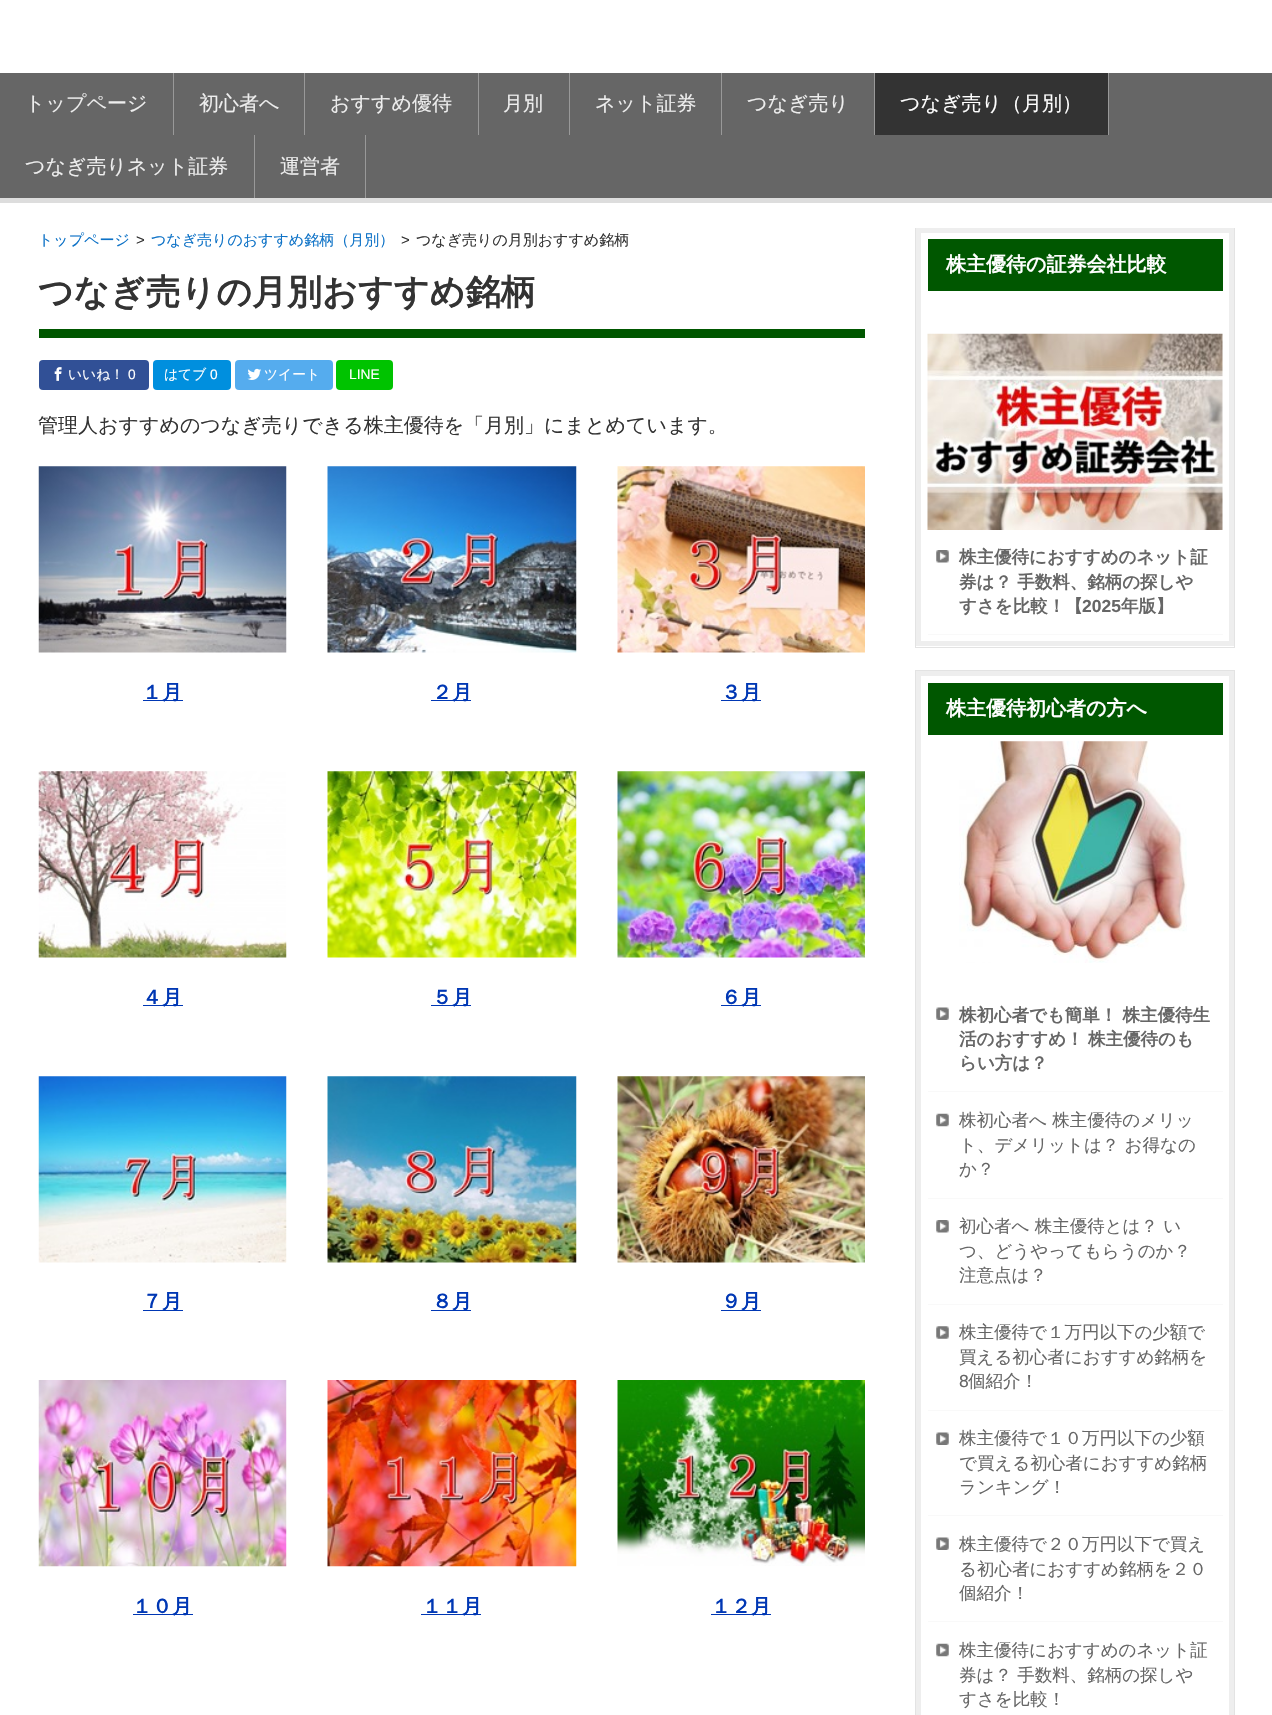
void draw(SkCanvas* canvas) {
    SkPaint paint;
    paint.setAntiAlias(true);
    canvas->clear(0xFFFFFFFF);
    paint.setColor(0xFF666666);
    canvas->drawRect(SkRect::MakeXYWH(0, 73, 1272, 125), paint);
    paint.setColor(0xFFDDDDDD);
    canvas->drawRect(SkRect::MakeXYWH(0, 198, 1272, 5), paint);
    paint.setColor(0xFF999999);
    canvas->drawRect(SkRect::MakeXYWH(173, 73, 1, 62), paint);
    SkFont font1(fontMgr->matchFamilyStyle("WenQuanYi Zen Hei", SkFontStyle(500, SkFontStyle::kNormal_Width, SkFontStyle::kUpright_Slant)), 20);
    font1.setSubpixel(true);
    paint.setColor(0xFFEEEEEE);
    canvas->drawString("トップページ", 25, 110, font1, paint);
    paint.setColor(0xFF999999);
    canvas->drawRect(SkRect::MakeXYWH(304, 73, 1, 62), paint);
    paint.setColor(0xFFEEEEEE);
    canvas->drawString("初心者へ", 199, 110, font1, paint);
    paint.setColor(0xFF999999);
    canvas->drawRect(SkRect::MakeXYWH(478, 73, 1, 62), paint);
    paint.setColor(0xFFEEEEEE);
    canvas->drawString("おすすめ優待", 330, 110, font1, paint);
    paint.setColor(0xFF999999);
    canvas->drawRect(SkRect::MakeXYWH(569, 73, 1, 62), paint);
    paint.setColor(0xFFEEEEEE);
    canvas->drawString("月別", 503, 110, font1, paint);
    paint.setColor(0xFF999999);
    canvas->drawRect(SkRect::MakeXYWH(721, 73, 1, 62), paint);
    paint.setColor(0xFFEEEEEE);
    canvas->drawString("ネット証券", 595, 110, font1, paint);
    paint.setColor(0xFF999999);
    canvas->drawRect(SkRect::MakeXYWH(874, 73, 1, 62), paint);
    paint.setColor(0xFFEEEEEE);
    canvas->drawString("つなぎ売り", 747, 110, font1, paint);
    paint.setColor(0xFF999999);
    canvas->drawRect(SkRect::MakeXYWH(1108, 73, 1, 62), paint);
    paint.setColor(0xFF333333);
    canvas->drawRect(SkRect::MakeXYWH(875, 73, 233, 62), paint);
    paint.setColor(0xFFFFFFFF);
    canvas->drawString("つなぎ売り（月別）", 900, 110, font1, paint);
    paint.setColor(0xFF999999);
    canvas->drawRect(SkRect::MakeXYWH(254, 135, 1, 63), paint);
    paint.setColor(0xFFEEEEEE);
    canvas->drawString("つなぎ売りネット証券", 25, 173, font1, paint);
    paint.setColor(0xFF999999);
    canvas->drawRect(SkRect::MakeXYWH(365, 135, 1, 63), paint);
    paint.setColor(0xFFEEEEEE);
    canvas->drawString("運営者", 280, 173, font1, paint);
    SkFont font2(fontMgr->matchFamilyStyle("WenQuanYi Zen Hei", SkFontStyle(500, SkFontStyle::kNormal_Width, SkFontStyle::kUpright_Slant)), 15);
    font2.setSubpixel(true);
    paint.setColor(0xFF0D72C7);
    canvas->drawString("トップページ", 38, 245, font2, paint);
    SkFont font3(fontMgr->matchFamilyStyle("Liberation Sans", SkFontStyle::Normal()), 15);
    font3.setSubpixel(true);
    paint.setColor(0xFF333333);
    canvas->drawString(">", 136, 245, font3, paint);
    paint.setColor(0xFF0D72C7);
    canvas->drawString("つなぎ売りのおすすめ銘柄（月別）", 151, 245, font2, paint);
    paint.setColor(0xFF333333);
    canvas->drawString(">", 401, 245, font3, paint);
    canvas->drawString("つなぎ売りの月別おすすめ銘柄", 416, 245, font2, paint);
    paint.setColor(0xFF005700);
    canvas->drawRect(SkRect::MakeXYWH(39, 329, 826, 9), paint);
    SkFont font4(fontMgr->matchFamilyStyle("WenQuanYi Zen Hei", SkFontStyle::Bold()), 35);
    font4.setSubpixel(true);
    paint.setColor(0xFF333333);
    canvas->drawString("つなぎ売りの月別おすすめ銘柄", 38, 304, font4, paint);
    paint.setColor(0xFF315096);
    canvas->drawRoundRect(SkRect::MakeXYWH(39, 360, 110, 30), 4, 4, paint);
    canvas->drawImageRect(SkImages::DeferredFromEncodedData(SkData::MakeFromFileName("img1.png")), SkRect::MakeXYWH(54, 367, 8, 14), SkSamplingOptions());
    SkFont font5(fontMgr->matchFamilyStyle("WenQuanYi Zen Hei", SkFontStyle(500, SkFontStyle::kNormal_Width, SkFontStyle::kUpright_Slant)), 13.75f);
    font5.setSubpixel(true);
    paint.setColor(0xFFFFFFFF);
    canvas->drawString("いいね！", 68, 379, font5, paint);
    SkFont font6(fontMgr->matchFamilyStyle("Liberation Sans", SkFontStyle::Normal()), 13.75f);
    font6.setSubpixel(true);
    canvas->drawString("0", 128, 379, font6, paint);
    paint.setColor(0xFF008FDE);
    canvas->drawRoundRect(SkRect::MakeXYWH(153, 360, 78, 30), 4, 4, paint);
    paint.setColor(0xFFFFFFFF);
    canvas->drawString("はてブ", 164, 379, font5, paint);
    canvas->drawString("0", 210, 379, font6, paint);
    paint.setColor(0xFF55ACEE);
    canvas->drawRoundRect(SkRect::MakeXYWH(235, 360, 98, 30), 4, 4, paint);
    canvas->drawImageRect(SkImages::DeferredFromEncodedData(SkData::MakeFromFileName("img2.png")), SkRect::MakeXYWH(247, 368, 15, 12), SkSamplingOptions());
    paint.setColor(0xFFFFFFFF);
    canvas->drawString("ツイート", 264, 379, font5, paint);
    paint.setColor(0xFF00C300);
    canvas->drawRoundRect(SkRect::MakeXYWH(336, 360, 57, 30), 4, 4, paint);
    paint.setColor(0xFFFFFFFF);
    canvas->drawString("LINE", 349, 379, font6, paint);
    paint.setColor(0xFF333333);
    canvas->drawString("管理人おすすめのつなぎ売りできる株主優待を「月別」にまとめています。", 38, 432, font1, paint);
    canvas->drawImageRect(SkImages::DeferredFromEncodedData(SkData::MakeFromFileName("img3.png")), SkRect::MakeXYWH(38, 466, 249, 187), SkSamplingOptions());
    paint.setColor(0xFF0037B4);
    canvas->drawRect(SkRect::MakeXYWH(143, 700, 40, 1), paint);
    SkFont font7(fontMgr->matchFamilyStyle("WenQuanYi Zen Hei", SkFontStyle::Bold()), 20);
    font7.setSubpixel(true);
    canvas->drawString("１月", 142, 699, font7, paint);
    canvas->drawImageRect(SkImages::DeferredFromEncodedData(SkData::MakeFromFileName("img4.png")), SkRect::MakeXYWH(327, 466, 250, 187), SkSamplingOptions());
    canvas->drawRect(SkRect::MakeXYWH(431, 700, 40, 1), paint);
    canvas->drawString("２月", 432, 699, font7, paint);
    canvas->drawImageRect(SkImages::DeferredFromEncodedData(SkData::MakeFromFileName("img5.png")), SkRect::MakeXYWH(617, 466, 248, 187), SkSamplingOptions());
    canvas->drawRect(SkRect::MakeXYWH(721, 700, 40, 1), paint);
    canvas->drawString("３月", 721, 699, font7, paint);
    canvas->drawImageRect(SkImages::DeferredFromEncodedData(SkData::MakeFromFileName("img6.png")), SkRect::MakeXYWH(38, 771, 249, 187), SkSamplingOptions());
    canvas->drawRect(SkRect::MakeXYWH(143, 1005, 40, 1), paint);
    canvas->drawString("４月", 142, 1004, font7, paint);
    canvas->drawImageRect(SkImages::DeferredFromEncodedData(SkData::MakeFromFileName("img7.png")), SkRect::MakeXYWH(327, 771, 250, 187), SkSamplingOptions());
    canvas->drawRect(SkRect::MakeXYWH(431, 1005, 40, 1), paint);
    canvas->drawString("５月", 432, 1004, font7, paint);
    canvas->drawImageRect(SkImages::DeferredFromEncodedData(SkData::MakeFromFileName("img8.png")), SkRect::MakeXYWH(617, 771, 248, 187), SkSamplingOptions());
    canvas->drawRect(SkRect::MakeXYWH(721, 1005, 40, 1), paint);
    canvas->drawString("６月", 721, 1004, font7, paint);
    canvas->drawImageRect(SkImages::DeferredFromEncodedData(SkData::MakeFromFileName("img9.png")), SkRect::MakeXYWH(38, 1076, 249, 187), SkSamplingOptions());
    canvas->drawRect(SkRect::MakeXYWH(143, 1310, 40, 1), paint);
    canvas->drawString("７月", 142, 1308, font7, paint);
    canvas->drawImageRect(SkImages::DeferredFromEncodedData(SkData::MakeFromFileName("img10.png")), SkRect::MakeXYWH(327, 1076, 250, 187), SkSamplingOptions());
    canvas->drawRect(SkRect::MakeXYWH(431, 1310, 40, 1), paint);
    canvas->drawString("８月", 432, 1308, font7, paint);
    canvas->drawImageRect(SkImages::DeferredFromEncodedData(SkData::MakeFromFileName("img11.png")), SkRect::MakeXYWH(617, 1076, 248, 187), SkSamplingOptions());
    canvas->drawRect(SkRect::MakeXYWH(721, 1310, 40, 1), paint);
    canvas->drawString("９月", 721, 1308, font7, paint);
    canvas->drawImageRect(SkImages::DeferredFromEncodedData(SkData::MakeFromFileName("img12.png")), SkRect::MakeXYWH(38, 1380, 249, 187), SkSamplingOptions());
    canvas->drawRect(SkRect::MakeXYWH(133, 1614, 60, 1), paint);
    canvas->drawString("１０月", 132, 1613, font7, paint);
    canvas->drawImageRect(SkImages::DeferredFromEncodedData(SkData::MakeFromFileName("img13.png")), SkRect::MakeXYWH(327, 1380, 250, 187), SkSamplingOptions());
    canvas->drawRect(SkRect::MakeXYWH(421, 1614, 60, 1), paint);
    canvas->drawString("１１月", 422, 1613, font7, paint);
    canvas->drawImageRect(SkImages::DeferredFromEncodedData(SkData::MakeFromFileName("img14.png")), SkRect::MakeXYWH(617, 1380, 248, 186), SkSamplingOptions());
    canvas->drawRect(SkRect::MakeXYWH(711, 1614, 60, 1), paint);
    canvas->drawString("１２月", 711, 1613, font7, paint);
    paint.setStyle(SkPaint::kStroke_Style);
    paint.setStrokeWidth(5);
    paint.setColor(0xFFEEEEEE);
    canvas->drawRect(SkRect::MakeXYWH(918.5f, 230.5f, 313, 413), paint);
    paint.setStyle(SkPaint::kFill_Style);
    paint.setColor(0xFF005700);
    canvas->drawRect(SkRect::MakeXYWH(928, 239, 295, 52), paint);
    canvas->drawImageRect(SkImages::DeferredFromEncodedData(SkData::MakeFromFileName("img15.png")), SkRect::MakeXYWH(927, 333, 296, 197), SkSamplingOptions());
    paint.setColor(0xFFF9F9F9);
    canvas->drawRect(SkRect::MakeXYWH(928, 634, 295, 1), paint);
    canvas->drawImageRect(SkImages::DeferredFromEncodedData(SkData::MakeFromFileName("img16.png")), SkRect::MakeXYWH(936, 550, 13, 13), SkSamplingOptions());
    canvas->save();
    canvas->clipRect(SkRect::MakeXYWH(0, 228, 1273, 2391));
    paint.setStyle(SkPaint::kStroke_Style);
    paint.setStrokeWidth(1);
    paint.setColor(0xFFE3E3E3);
    canvas->drawRect(SkRect::MakeXYWH(915.5f, 226.5f, 319, 421), paint);
    canvas->restore();
    paint.setStyle(SkPaint::kFill_Style);
    paint.setColor(0xFFFFFFFF);
    canvas->drawString("株主優待の証券会社比較", 946, 271, font7, paint);
    SkFont font8(fontMgr->matchFamilyStyle("WenQuanYi Zen Hei", SkFontStyle::Bold()), 17.5f);
    font8.setSubpixel(true);
    paint.setColor(0xFF666666);
    canvas->drawString("株主優待におすすめのネット証", 959, 563, font8, paint);
    canvas->drawString("券は？ 手数料、銘柄の探しや", 959, 588, font8, paint);
    canvas->drawString("すさを比較！【", 959, 612, font8, paint);
    SkFont font9(fontMgr->matchFamilyStyle("Liberation Sans", SkFontStyle::Bold()), 17.5f);
    font9.setSubpixel(true);
    canvas->drawString("2025", 1082, 612, font9, paint);
    canvas->drawString("年版】", 1121, 612, font8, paint);
    paint.setStyle(SkPaint::kStroke_Style);
    paint.setStrokeWidth(5);
    paint.setColor(0xFFEEEEEE);
    canvas->drawRect(SkRect::MakeXYWH(918.5f, 673.5f, 313, 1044), paint);
    paint.setStyle(SkPaint::kFill_Style);
    paint.setColor(0xFF005700);
    canvas->drawRect(SkRect::MakeXYWH(928, 683, 295, 52), paint);
    canvas->drawImageRect(SkImages::DeferredFromEncodedData(SkData::MakeFromFileName("img17.png")), SkRect::MakeXYWH(959, 741, 228, 222), SkSamplingOptions());
    paint.setColor(0xFFF9F9F9);
    canvas->drawRect(SkRect::MakeXYWH(928, 1091, 295, 1), paint);
    canvas->drawImageRect(SkImages::DeferredFromEncodedData(SkData::MakeFromFileName("img18.png")), SkRect::MakeXYWH(936, 1007, 13, 13), SkSamplingOptions());
    canvas->drawRect(SkRect::MakeXYWH(928, 1198, 295, 1), paint);
    canvas->drawImageRect(SkImages::DeferredFromEncodedData(SkData::MakeFromFileName("img19.png")), SkRect::MakeXYWH(936, 1113, 13, 14), SkSamplingOptions());
    canvas->drawRect(SkRect::MakeXYWH(928, 1304, 295, 1), paint);
    canvas->drawImageRect(SkImages::DeferredFromEncodedData(SkData::MakeFromFileName("img16.png")), SkRect::MakeXYWH(936, 1220, 13, 13), SkSamplingOptions());
    canvas->drawRect(SkRect::MakeXYWH(928, 1410, 295, 1), paint);
    canvas->drawImageRect(SkImages::DeferredFromEncodedData(SkData::MakeFromFileName("img20.png")), SkRect::MakeXYWH(936, 1326, 13, 13), SkSamplingOptions());
    canvas->drawRect(SkRect::MakeXYWH(928, 1515, 295, 1), paint);
    canvas->drawImageRect(SkImages::DeferredFromEncodedData(SkData::MakeFromFileName("img18.png")), SkRect::MakeXYWH(936, 1432, 13, 13), SkSamplingOptions());
    canvas->drawRect(SkRect::MakeXYWH(928, 1621, 295, 1), paint);
    canvas->drawImageRect(SkImages::DeferredFromEncodedData(SkData::MakeFromFileName("img18.png")), SkRect::MakeXYWH(936, 1537, 13, 13), SkSamplingOptions());
    canvas->drawImageRect(SkImages::DeferredFromEncodedData(SkData::MakeFromFileName("img19.png")), SkRect::MakeXYWH(936, 1643, 13, 14), SkSamplingOptions());
    paint.setStyle(SkPaint::kStroke_Style);
    paint.setStrokeWidth(1);
    paint.setColor(0xFFE3E3E3);
    canvas->drawRect(SkRect::MakeXYWH(915.5f, 670.5f, 319, 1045), paint);
    paint.setStyle(SkPaint::kFill_Style);
    paint.setColor(0xFFFFFFFF);
    canvas->drawString("株主優待初心者の方へ", 946, 715, font7, paint);
    paint.setColor(0xFF666666);
    canvas->drawString("株初心者でも簡単！ 株主優待生", 959, 1021, font8, paint);
    canvas->drawString("活のおすすめ！", 959, 1045, font8, paint);
    canvas->drawString("株主優待のも", 1088, 1045, font8, paint);
    canvas->drawString("らい方は？", 959, 1069, font8, paint);
    SkFont font10(fontMgr->matchFamilyStyle("WenQuanYi Zen Hei", SkFontStyle(500, SkFontStyle::kNormal_Width, SkFontStyle::kUpright_Slant)), 17.5f);
    font10.setSubpixel(true);
    canvas->drawString("株初心者へ 株主優待のメリッ", 959, 1126, font10, paint);
    canvas->drawString("ト、デメリットは？ お得なの", 959, 1151, font10, paint);
    canvas->drawString("か？", 959, 1175, font10, paint);
    canvas->drawString("初心者へ 株主優待とは？ い", 959, 1232, font10, paint);
    canvas->drawString("つ、どうやってもらうのか？", 959, 1257, font10, paint);
    canvas->drawString("注意点は？", 959, 1281, font10, paint);
    canvas->drawString("株主優待で１万円以下の少額で", 959, 1338, font10, paint);
    canvas->drawString("買える初心者におすすめ銘柄を", 959, 1363, font10, paint);
    SkFont font11(fontMgr->matchFamilyStyle("Liberation Sans", SkFontStyle::Normal()), 17.5f);
    font11.setSubpixel(true);
    canvas->drawString("8", 959, 1387, font11, paint);
    canvas->drawString("個紹介！", 968, 1387, font10, paint);
    canvas->drawString("株主優待で１０万円以下の少額", 959, 1444, font10, paint);
    canvas->drawString("で買える初心者におすすめ銘柄", 959, 1469, font10, paint);
    canvas->drawString("ランキング！", 959, 1493, font10, paint);
    canvas->drawString("株主優待で２０万円以下で買え", 959, 1550, font10, paint);
    canvas->drawString("る初心者におすすめ銘柄を２０", 959, 1575, font10, paint);
    canvas->drawString("個紹介！", 959, 1599, font10, paint);
    canvas->drawString("株主優待におすすめのネット証", 959, 1656, font10, paint);
    canvas->drawString("券は？ 手数料、銘柄の探しや", 959, 1681, font10, paint);
    canvas->drawString("すさを比較！", 959, 1705, font10, paint);
}
